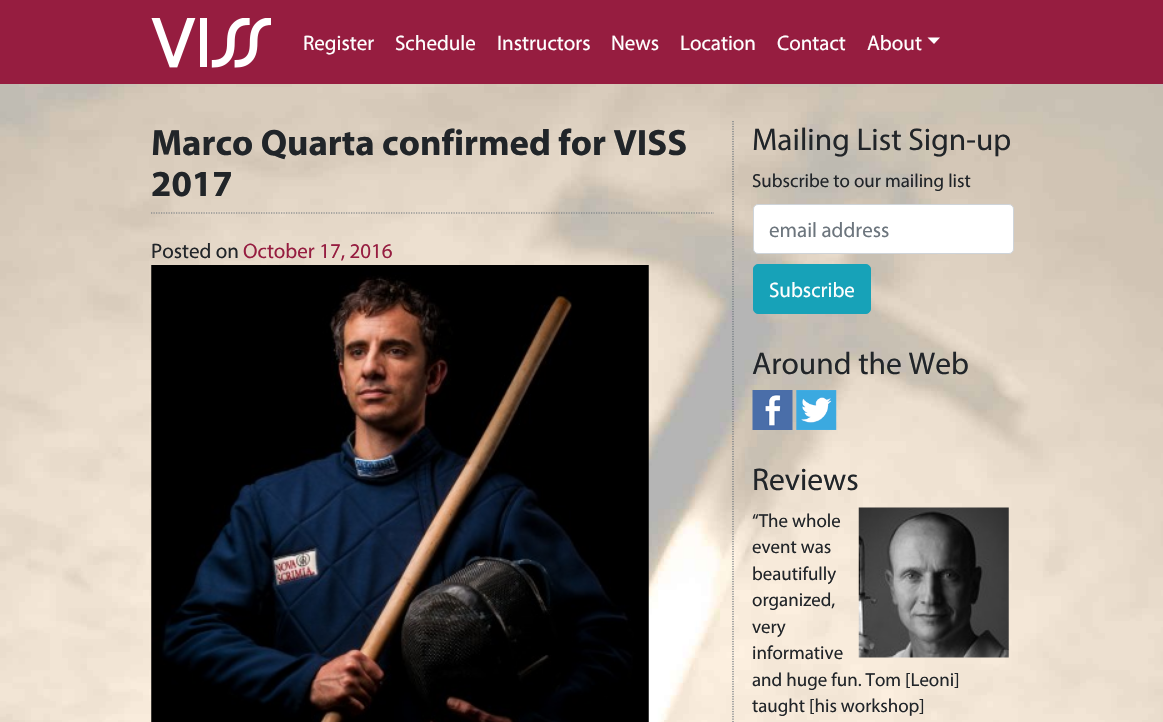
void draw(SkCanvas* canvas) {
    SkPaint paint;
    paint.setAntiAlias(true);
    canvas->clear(0xFFFFFFFF);
    canvas->drawImageRect(SkImages::DeferredFromEncodedData(SkData::MakeFromFileName("img1.png")), SkRect::MakeXYWH(0, 84, 1163, 638), SkSamplingOptions());
    paint.setColor(0xFF961D40);
    canvas->drawRect(SkRect::MakeXYWH(0, 0, 1163, 84), paint);
    canvas->drawImageRect(SkImages::DeferredFromEncodedData(SkData::MakeFromFileName("img2.png")), SkRect::MakeXYWH(151, 18, 120, 50), SkSamplingOptions());
    SkFont font1(fontMgr->matchFamilyStyle("Myriad", SkFontStyle::Normal()), 21);
    font1.setSubpixel(true);
    paint.setColor(0xFFFFFFFF);
    canvas->drawString("Register", 303, 50, font1, paint);
    canvas->drawString("Schedule", 395, 50, font1, paint);
    canvas->drawString("Instructors", 497, 50, font1, paint);
    canvas->drawString("News", 611, 50, font1, paint);
    canvas->drawString("Location", 680, 50, font1, paint);
    canvas->drawString("Contact", 777, 50, font1, paint);
    canvas->drawString("About", 867, 50, font1, paint);
    canvas->drawPath(SkPathBuilder().moveTo(927.5f, 37.5f).lineTo(940, 37.5f).lineTo(934, 44).close().detach(), paint);
    paint.setStyle(SkPaint::kStroke_Style);
    paint.setStrokeWidth(1.2f);
    paint.setColor(0xFF6C757D);
    paint.setPathEffect(SkDashPathEffect::Make({{1.25f, 1.25f}}, 0));
    canvas->drawPath(SkPathBuilder().moveTo(151, 213).lineTo(714, 213).detach(), paint);
    paint.setPathEffect(nullptr);
    SkFont font2(fontMgr->matchFamilyStyle("Myriad", SkFontStyle::Bold()), 36.75f);
    font2.setSubpixel(true);
    paint.setStyle(SkPaint::kFill_Style);
    paint.setColor(0xFF212529);
    canvas->drawString("Marco Quarta confirmed for VISS", 151, 155, font2, paint);
    canvas->drawString("2017", 151, 196, font2, paint);
    canvas->drawString("Posted on", 151, 258, font1, paint);
    paint.setColor(0xFF961D40);
    canvas->drawString("October 17, 2016", 243, 258, font1, paint);
    canvas->drawImageRect(SkImages::DeferredFromEncodedData(SkData::MakeFromFileName("img3.png")), SkRect::MakeXYWH(151, 265, 498, 457), SkSamplingOptions());
    paint.setStyle(SkPaint::kStroke_Style);
    paint.setColor(0xFF6C757D);
    paint.setPathEffect(SkDashPathEffect::Make({{1.25f, 1.25f}}, 0));
    canvas->drawPath(SkPathBuilder().moveTo(733, 121).lineTo(733, 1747.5f).detach(), paint);
    paint.setPathEffect(nullptr);
    SkFont font3(fontMgr->matchFamilyStyle("Myriad", SkFontStyle::Normal()), 31.5f);
    font3.setSubpixel(true);
    paint.setStyle(SkPaint::kFill_Style);
    paint.setColor(0xFF212529);
    canvas->drawString("Mailing List Sign-up", 752, 150, font3, paint);
    SkFont font4(fontMgr->matchFamilyStyle("Myriad", SkFontStyle::Normal()), 18.9f);
    font4.setSubpixel(true);
    canvas->drawString("Subscribe to our mailing list", 752, 187, font4, paint);
    paint.setColor(0xFFFFFFFF);
    canvas->drawRoundRect(SkRect::MakeXYWH(753.5f, 204.5f, 260, 49), 4.5f, 4.5f, paint);
    paint.setStyle(SkPaint::kStroke_Style);
    paint.setStrokeWidth(1);
    paint.setColor(0xFFCED4DA);
    canvas->drawRoundRect(SkRect::MakeXYWH(753.5f, 204.5f, 260, 49), 4.5f, 4.5f, paint);
    paint.setStyle(SkPaint::kFill_Style);
    paint.setColor(0xFF6C757D);
    canvas->drawString("email address", 769, 237, font1, paint);
    paint.setColor(0xFF17A2B8);
    canvas->drawRoundRect(SkRect::MakeXYWH(753.5f, 264.5f, 117, 49), 4.5f, 4.5f, paint);
    paint.setStyle(SkPaint::kStroke_Style);
    canvas->drawRoundRect(SkRect::MakeXYWH(753.5f, 264.5f, 117, 49), 4.5f, 4.5f, paint);
    paint.setStyle(SkPaint::kFill_Style);
    paint.setColor(0xFFFFFFFF);
    canvas->drawString("Subscribe", 769, 297, font1, paint);
    paint.setColor(0xFF212529);
    canvas->drawString("Around the Web", 752, 374, font3, paint);
    canvas->drawImageRect(SkImages::DeferredFromEncodedData(SkData::MakeFromFileName("img4.png")), SkRect::MakeXYWH(752, 390, 41, 40), SkSamplingOptions());
    canvas->drawImageRect(SkImages::DeferredFromEncodedData(SkData::MakeFromFileName("img5.png")), SkRect::MakeXYWH(796, 390, 41, 40), SkSamplingOptions());
    canvas->drawString("Reviews", 752, 490, font3, paint);
    canvas->drawImageRect(SkImages::DeferredFromEncodedData(SkData::MakeFromFileName("img6.png")), SkRect::MakeXYWH(858, 507, 151, 151), SkSamplingOptions());
    canvas->drawString("“The whole", 752, 527, font4, paint);
    canvas->drawString("event was", 752, 553, font4, paint);
    canvas->drawString("beautifully", 752, 580, font4, paint);
    canvas->drawString("organized,", 752, 606, font4, paint);
    canvas->drawString("very", 752, 633, font4, paint);
    canvas->drawString("informative", 752, 659, font4, paint);
    canvas->drawString("and huge fun. Tom [Leoni]", 752, 686, font4, paint);
    canvas->drawString("taught [his workshop]", 752, 712, font4, paint);
}
